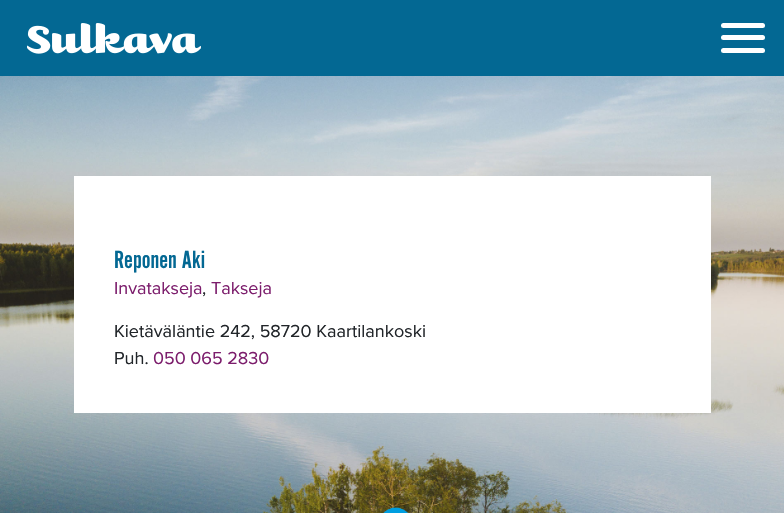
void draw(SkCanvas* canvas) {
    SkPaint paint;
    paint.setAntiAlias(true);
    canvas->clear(0xFFFFFFFF);
    canvas->drawImageRect(SkImages::DeferredFromEncodedData(SkData::MakeFromFileName("img1.png")), SkRect::MakeXYWH(0, 76, 784, 437), SkSamplingOptions());
    paint.setColor(0xFF036893);
    canvas->drawRect(SkRect::MakeXYWH(0, 0, 784, 76), paint);
    canvas->drawImageRect(SkImages::DeferredFromEncodedData(SkData::MakeFromFileName("img2.png")), SkRect::MakeXYWH(27, 23, 174, 31), SkSamplingOptions());
    paint.setColor(0xFFFFFFFF);
    canvas->drawRoundRect(SkRect::MakeXYWH(721, 23, 44, 5), 2.5f, 2.5f, paint);
    canvas->drawRoundRect(SkRect::MakeXYWH(721, 35, 44, 5), 2.5f, 2.5f, paint);
    canvas->drawRoundRect(SkRect::MakeXYWH(721, 48, 44, 5), 2.5f, 2.5f, paint);
    canvas->drawRect(SkRect::MakeXYWH(74, 176, 637, 237), paint);
    SkFont font1(fontMgr->matchFamilyStyle("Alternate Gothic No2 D", SkFontStyle::Normal()), 26);
    font1.setSubpixel(true);
    paint.setColor(0xFF036893);
    canvas->drawString("Reponen Aki", 114, 268, font1, paint);
    SkFont font2(fontMgr->matchFamilyStyle("Proxima Nova", SkFontStyle::Normal()), 18);
    font2.setSubpixel(true);
    paint.setColor(0xFF7C1D6C);
    canvas->drawString("Invatakseja", 114, 294, font2, paint);
    paint.setColor(0xFF212529);
    canvas->drawString(",", 202, 294, font2, paint);
    paint.setColor(0xFF7C1D6C);
    canvas->drawString("Takseja", 211, 294, font2, paint);
    paint.setColor(0xFF212529);
    canvas->drawString("Kietäväläntie 242, 58720 Kaartilankoski", 114, 337, font2, paint);
    canvas->drawString("Puh.", 114, 364, font2, paint);
    paint.setColor(0xFF7C1D6C);
    canvas->drawString("050 065 2830", 153, 364, font2, paint);
    canvas->drawImageRect(SkImages::DeferredFromEncodedData(SkData::MakeFromFileName("img3.png")), SkRect::MakeXYWH(383, 507, 25, 6), SkSamplingOptions());
}
